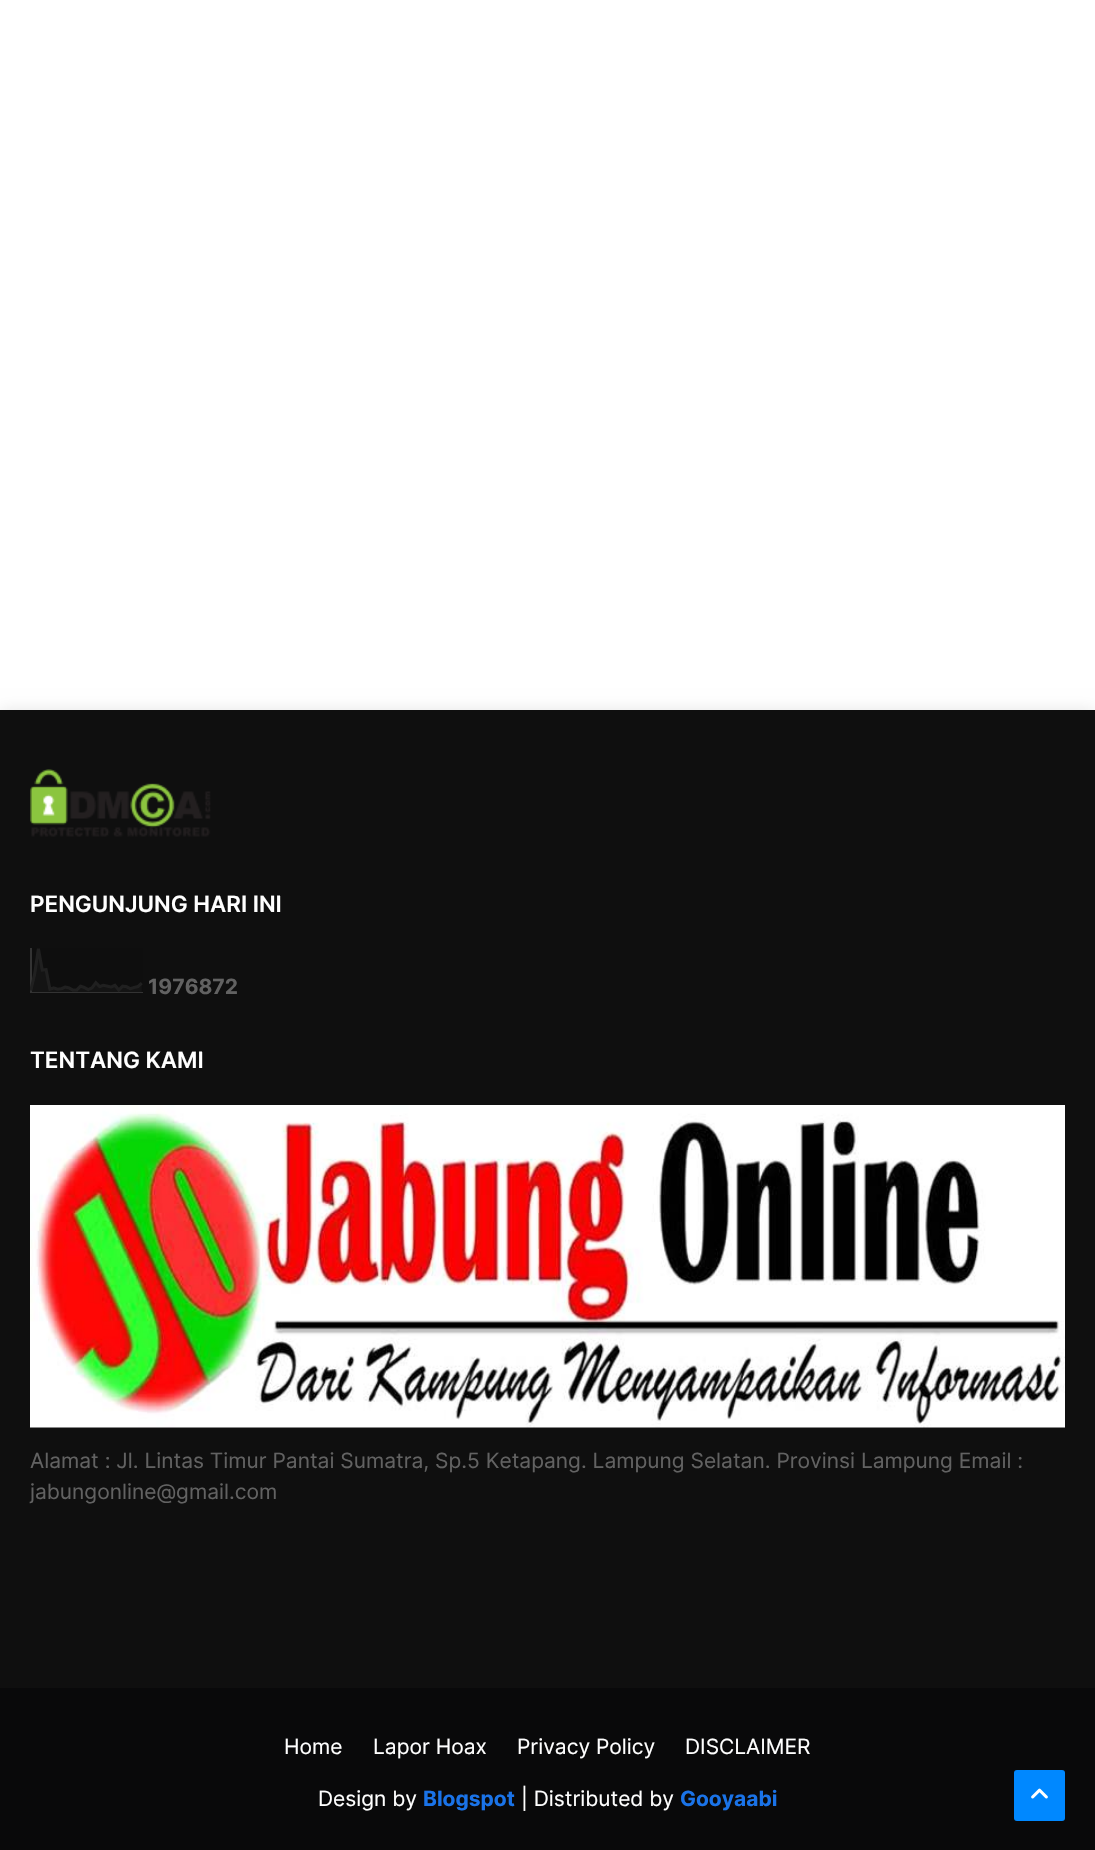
void draw(SkCanvas* canvas) {
    SkPaint paint;
    paint.setAntiAlias(true);
    canvas->clear(0xFFFFFFFF);
    paint.setColor(0x1A000000);
    paint.setMaskFilter(SkMaskFilter::MakeBlur(kNormal_SkBlurStyle, 7.5f));
    canvas->drawRect(SkRect::MakeXYWH(0, 710, 1095, 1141), paint);
    paint.setMaskFilter(nullptr);
    paint.setColor(0xFF0F0F0F);
    canvas->drawRect(SkRect::MakeXYWH(0, 710, 1095, 978), paint);
    canvas->drawImageRect(SkImages::DeferredFromEncodedData(SkData::MakeFromFileName("img1.png")), SkRect::MakeXYWH(30, 769, 181, 68), SkSamplingOptions());
    SkFont font1(fontMgr->matchFamilyStyle("Inter", SkFontStyle(600, SkFontStyle::kNormal_Width, SkFontStyle::kUpright_Slant)), 22.5f);
    font1.setSubpixel(true);
    paint.setColor(0xFFFFFFFF);
    canvas->drawString("PENGUNJUNG HARI INI", 30, 912, font1, paint);
    canvas->drawImageRect(SkImages::DeferredFromEncodedData(SkData::MakeFromFileName("img2.png")), SkRect::MakeXYWH(30, 948, 113, 45), SkSamplingOptions());
    SkFont font2(fontMgr->matchFamilyStyle("Inter", SkFontStyle::Bold()), 21);
    font2.setSubpixel(true);
    paint.setColor(0xFF626262);
    canvas->drawString("1976872", 148, 994, font2, paint);
    paint.setColor(0xFFFFFFFF);
    canvas->drawString("TENTANG KAMI", 30, 1068, font1, paint);
    canvas->drawImageRect(SkImages::DeferredFromEncodedData(SkData::MakeFromFileName("img3.png")), SkRect::MakeXYWH(30, 1105, 1035, 323), SkSamplingOptions());
    SkFont font3(fontMgr->matchFamilyStyle("Inter", SkFontStyle::Normal()), 21);
    font3.setSubpixel(true);
    paint.setColor(0xFF626262);
    canvas->drawString("Alamat : Jl. Lintas Timur Pantai Sumatra, Sp.5 Ketapang. Lampung Selatan. Provinsi Lampung Email :", 30, 1468, font3, paint);
    canvas->drawString("jabungonline@gmail.com", 30, 1499, font3, paint);
    paint.setColor(0xFF09090A);
    canvas->drawRect(SkRect::MakeXYWH(0, 1688, 1095, 162), paint);
    paint.setColor(0xFFFFFFFF);
    canvas->drawString("Home", 284, 1754, font3, paint);
    canvas->drawString("Lapor Hoax", 373, 1754, font3, paint);
    canvas->drawString("Privacy Policy", 517, 1754, font3, paint);
    canvas->drawString("DISCLAIMER", 685, 1754, font3, paint);
    canvas->drawString("Design by", 318, 1806, font3, paint);
    paint.setColor(0xFF1A73E8);
    canvas->drawString("Blogspot", 423, 1806, font2, paint);
    paint.setColor(0xFFFFFFFF);
    canvas->drawString("| Distributed by", 521, 1806, font3, paint);
    paint.setColor(0xFF1A73E8);
    canvas->drawString("Gooyaabi", 680, 1806, font2, paint);
    paint.setColor(0xFF0088FF);
    canvas->drawRoundRect(SkRect::MakeXYWH(1014, 1770, 51, 51), 3, 3, paint);
    canvas->drawImageRect(SkImages::DeferredFromEncodedData(SkData::MakeFromFileName("img4.png")), SkRect::MakeXYWH(1031, 1788, 17, 11), SkSamplingOptions());
}
